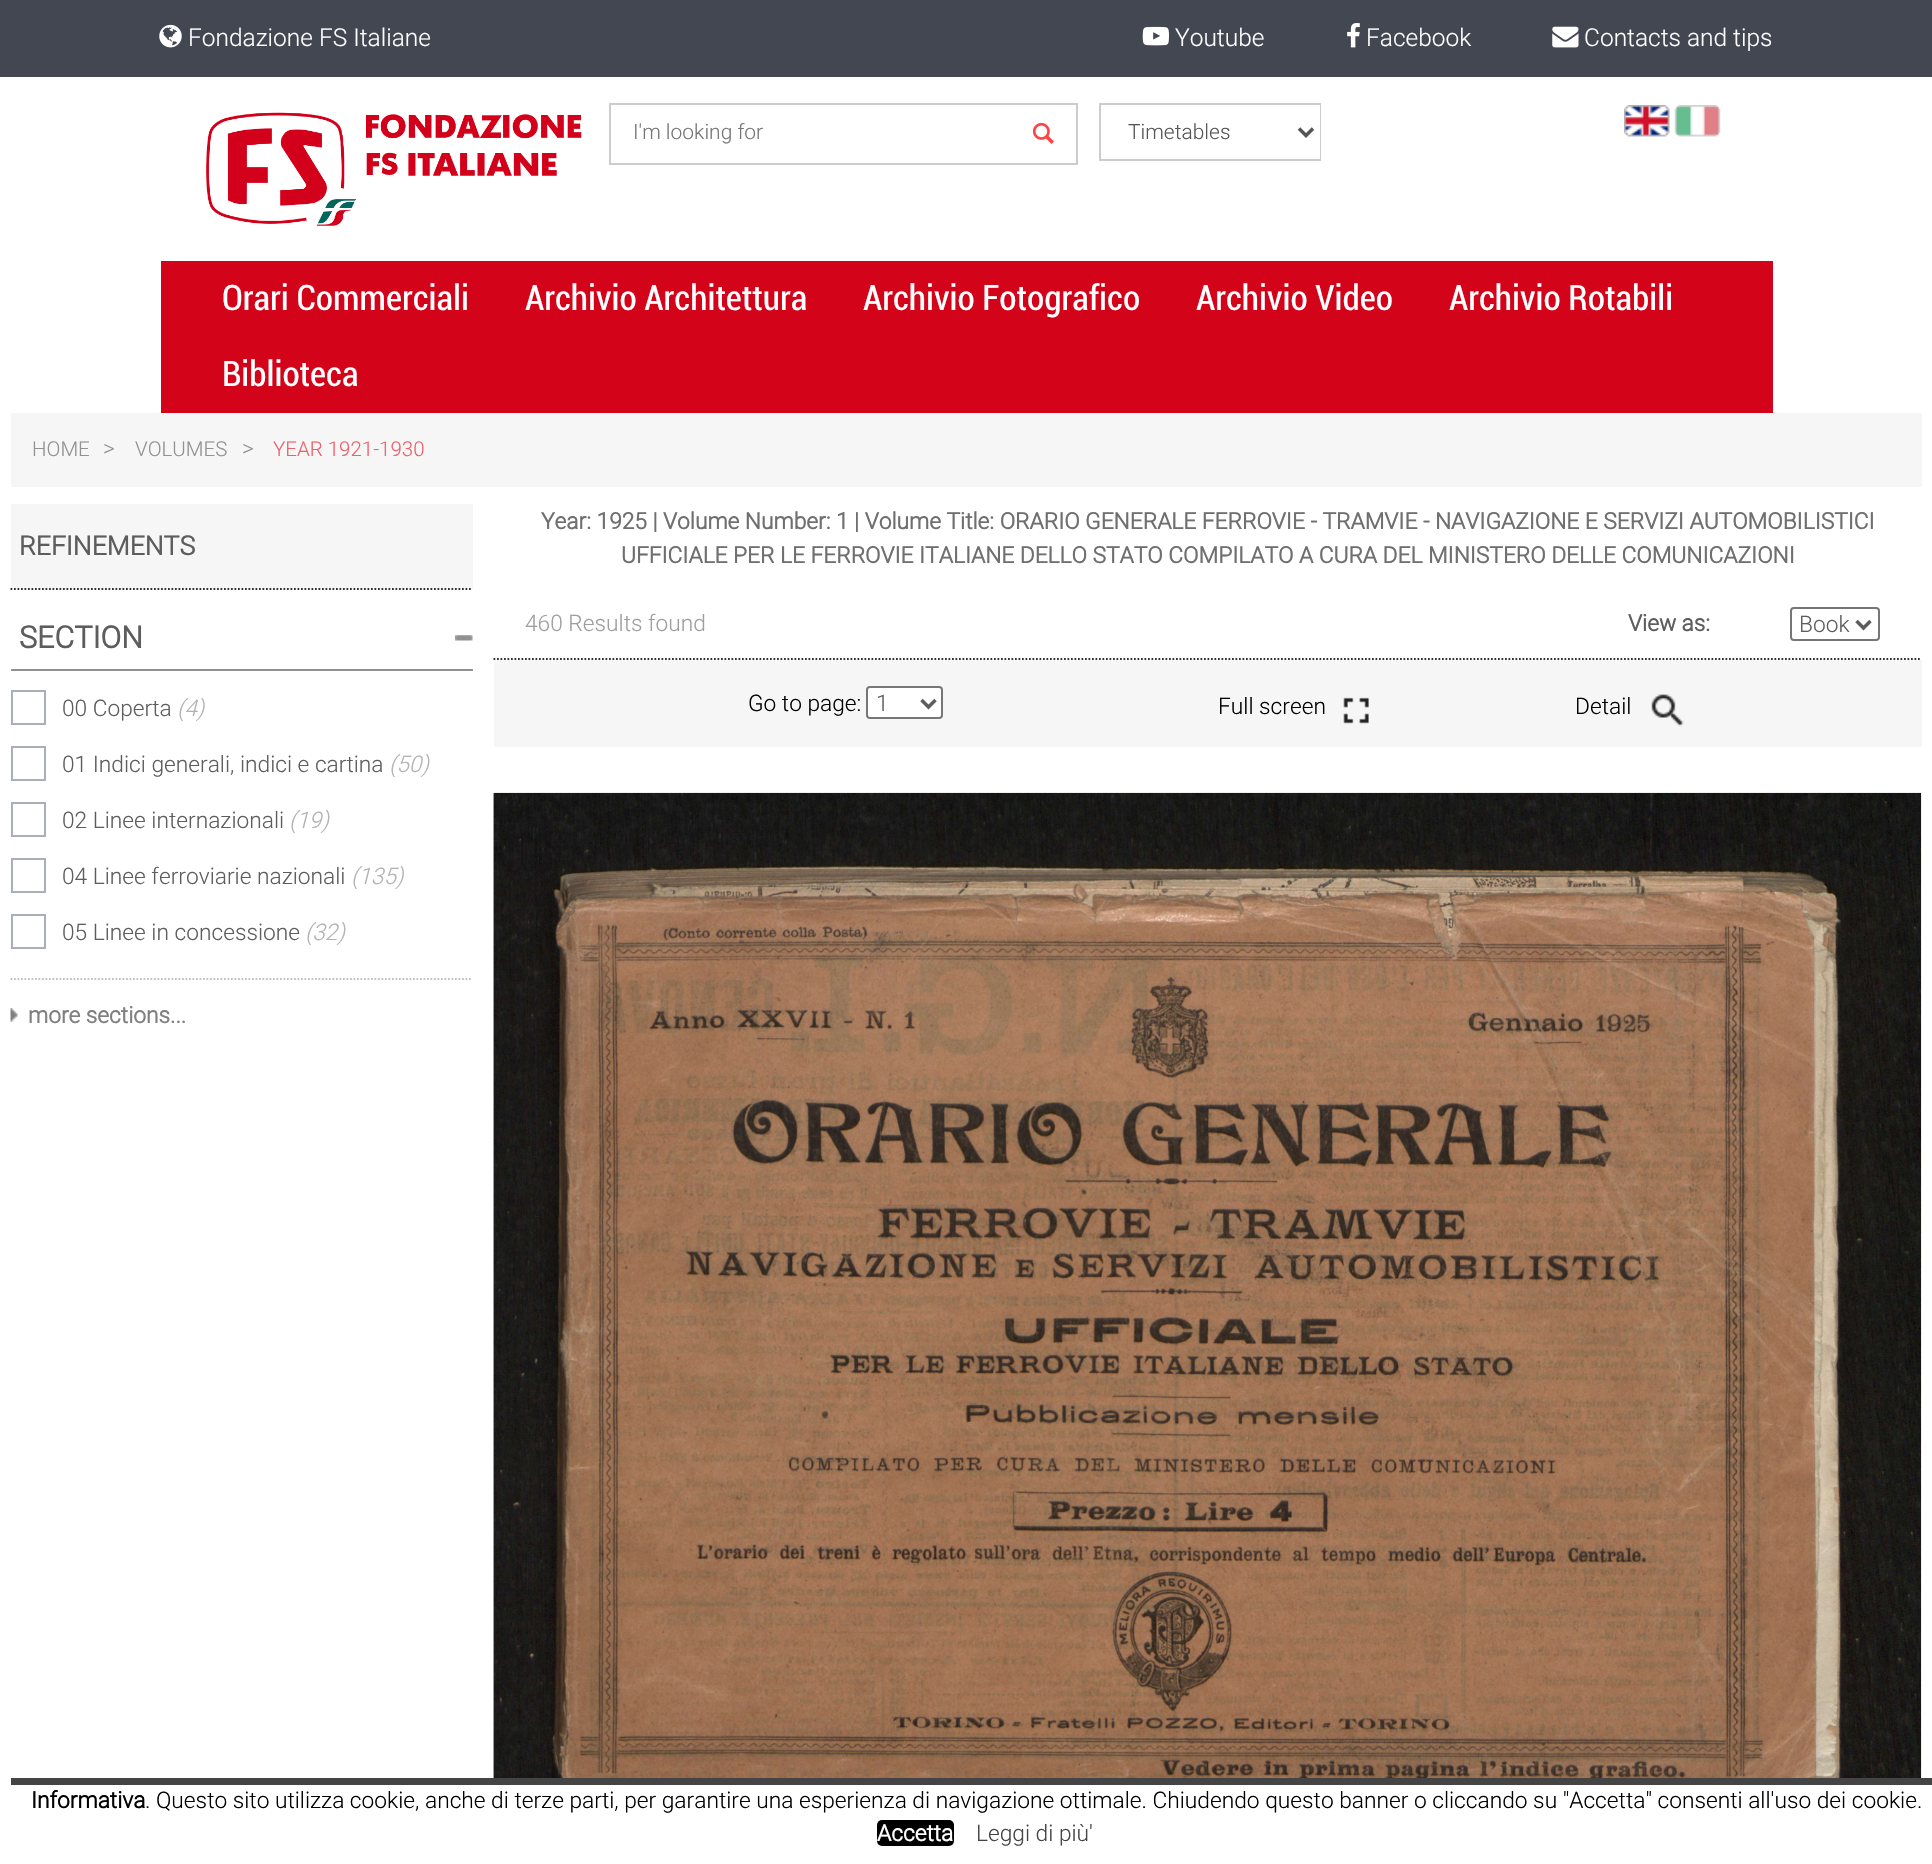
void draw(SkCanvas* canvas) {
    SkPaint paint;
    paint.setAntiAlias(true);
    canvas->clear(0xFFFFFFFF);
    paint.setColor(0xFF434752);
    canvas->drawRect(SkRect::MakeXYWH(0, 0, 1932, 77), paint);
    canvas->drawImageRect(SkImages::DeferredFromEncodedData(SkData::MakeFromFileName("img1.png")), SkRect::MakeXYWH(159, 24, 23, 24), SkSamplingOptions());
    SkFont font1(fontMgr->matchFamilyStyle("Roboto", SkFontStyle(300, SkFontStyle::kNormal_Width, SkFontStyle::kUpright_Slant)), 24.5f);
    font1.setSubpixel(true);
    paint.setColor(0xFFFFFFFF);
    canvas->drawString("Fondazione FS Italiane", 188, 46, font1, paint);
    canvas->drawImageRect(SkImages::DeferredFromEncodedData(SkData::MakeFromFileName("img2.png")), SkRect::MakeXYWH(1142, 26, 27, 20), SkSamplingOptions());
    canvas->drawString("Youtube", 1175, 46, font1, paint);
    canvas->drawImageRect(SkImages::DeferredFromEncodedData(SkData::MakeFromFileName("img3.png")), SkRect::MakeXYWH(1347, 23, 13, 25), SkSamplingOptions());
    canvas->drawString("Facebook", 1366, 46, font1, paint);
    canvas->drawImageRect(SkImages::DeferredFromEncodedData(SkData::MakeFromFileName("img4.png")), SkRect::MakeXYWH(1552, 26, 27, 22), SkSamplingOptions());
    canvas->drawString("Contacts and tips", 1584, 46, font1, paint);
    canvas->drawImageRect(SkImages::DeferredFromEncodedData(SkData::MakeFromFileName("img5.png")), SkRect::MakeXYWH(206, 112, 376, 114), SkSamplingOptions());
    paint.setStyle(SkPaint::kStroke_Style);
    paint.setStrokeWidth(2);
    paint.setColor(0xFFCCCCCC);
    canvas->drawRect(SkRect::MakeXYWH(610, 104, 467, 60), paint);
    SkFont font2(fontMgr->matchFamilyStyle("Roboto", SkFontStyle(300, SkFontStyle::kNormal_Width, SkFontStyle::kUpright_Slant)), 21);
    font2.setSubpixel(true);
    paint.setStyle(SkPaint::kFill_Style);
    paint.setColor(0xFF757575);
    canvas->drawString("I'm looking for", 633, 139, font2, paint);
    canvas->drawImageRect(SkImages::DeferredFromEncodedData(SkData::MakeFromFileName("img6.png")), SkRect::MakeXYWH(1032, 122, 22, 22), SkSamplingOptions());
    paint.setStyle(SkPaint::kStroke_Style);
    paint.setColor(0xFFCCCCCC);
    canvas->drawRect(SkRect::MakeXYWH(1100, 104, 220, 56), paint);
    paint.setStyle(SkPaint::kFill_Style);
    paint.setColor(0xFFFFFFFF);
    canvas->drawRect(SkRect::MakeXYWH(1319, 105, 1, 54), paint);
    paint.setStyle(SkPaint::kStroke_Style);
    paint.setStrokeWidth(3.5f);
    paint.setColor(0xFF555555);
    canvas->drawPath(SkPathBuilder().moveTo(1299, 128.5f).lineTo(1306, 135.5f).lineTo(1313, 128.5f).detach(), paint);
    paint.setStyle(SkPaint::kFill_Style);
    canvas->drawString("Timetables", 1128, 139, font2, paint);
    canvas->drawImageRect(SkImages::DeferredFromEncodedData(SkData::MakeFromFileName("img7.png")), SkRect::MakeXYWH(1624, 105, 46, 32), SkSamplingOptions());
    canvas->drawImageRect(SkImages::DeferredFromEncodedData(SkData::MakeFromFileName("img8.png")), SkRect::MakeXYWH(1674, 105, 47, 32), SkSamplingOptions());
    paint.setColor(0xFFD3031A);
    canvas->drawRect(SkRect::MakeXYWH(161, 261, 1612, 152), paint);
    SkFont font3(fontMgr->matchFamilyStyle("Roboto", SkFontStyle::Normal()), 35);
    font3.setSubpixel(true);
    paint.setColor(0xFFFFFFFF);
    canvas->drawString("Orari Commerciali", 222, 310, font3, paint);
    canvas->drawString("Archivio Architettura", 525, 310, font3, paint);
    canvas->drawString("Archivio Fotografico", 863, 310, font3, paint);
    canvas->drawString("Archivio Video", 1196, 310, font3, paint);
    canvas->drawString("Archivio Rotabili", 1449, 310, font3, paint);
    canvas->drawString("Biblioteca", 222, 386, font3, paint);
    paint.setColor(0xFFF6F6F6);
    canvas->drawRect(SkRect::MakeXYWH(11, 413, 1911, 74), paint);
    SkFont font4(fontMgr->matchFamilyStyle("Roboto", SkFontStyle(300, SkFontStyle::kNormal_Width, SkFontStyle::kUpright_Slant)), 20.5f);
    font4.setSubpixel(true);
    paint.setColor(0xFF919191);
    canvas->drawString("HOME", 32, 456, font4, paint);
    SkFont font5(fontMgr->matchFamilyStyle("Roboto", SkFontStyle(300, SkFontStyle::kNormal_Width, SkFontStyle::kUpright_Slant)), 22.75f);
    font5.setSubpixel(true);
    canvas->drawString(">", 103, 456, font5, paint);
    canvas->drawString("VOLUMES", 135, 456, font4, paint);
    canvas->drawString(">", 242, 456, font5, paint);
    paint.setColor(0xFFED5F69);
    canvas->drawString("YEAR 1921-1930", 273, 456, font4, paint);
    paint.setColor(0xFFF6F6F6);
    canvas->drawRect(SkRect::MakeXYWH(11, 504, 462, 86), paint);
    paint.setStyle(SkPaint::kStroke_Style);
    paint.setStrokeWidth(1.8f);
    paint.setColor(0xFF303030);
    paint.setPathEffect(SkDashPathEffect::Make({{1.75f, 1.75f}}, 0));
    canvas->drawPath(SkPathBuilder().moveTo(10.5f, 589).lineTo(472.5f, 589).detach(), paint);
    paint.setPathEffect(nullptr);
    SkFont font6(fontMgr->matchFamilyStyle("Roboto", SkFontStyle::Bold()), 26.5f);
    font6.setSubpixel(true);
    paint.setStyle(SkPaint::kFill_Style);
    paint.setColor(0xFF5D5D5D);
    canvas->drawString("REFINEMENTS", 19, 555, font6, paint);
    paint.setColor(0xFF919191);
    canvas->drawRect(SkRect::MakeXYWH(11, 669, 462, 2), paint);
    canvas->drawImageRect(SkImages::DeferredFromEncodedData(SkData::MakeFromFileName("img9.png")), SkRect::MakeXYWH(455, 635, 18, 6), SkSamplingOptions());
    SkFont font7(fontMgr->matchFamilyStyle("Roboto", SkFontStyle::Bold()), 30.5f);
    font7.setSubpixel(true);
    paint.setColor(0xFF5D5D5D);
    canvas->drawString("SECTION", 19, 648, font7, paint);
    paint.setStyle(SkPaint::kStroke_Style);
    paint.setStrokeWidth(2);
    paint.setColor(0xFFA9AFB7);
    canvas->drawRect(SkRect::MakeXYWH(12, 691, 33, 33), paint);
    paint.setStyle(SkPaint::kFill_Style);
    paint.setColor(0xFF5D5D5D);
    canvas->drawString("00 Coperta", 62, 716, font5, paint);
    SkFont font8(fontMgr->matchFamilyStyle("Roboto", SkFontStyle(300, SkFontStyle::kNormal_Width, SkFontStyle::kItalic_Slant)), 22.75f);
    font8.setSubpixel(true);
    paint.setColor(0xFFB2B2B2);
    canvas->drawString("(4)", 177, 716, font8, paint);
    paint.setStyle(SkPaint::kStroke_Style);
    paint.setColor(0xFFA9AFB7);
    canvas->drawRect(SkRect::MakeXYWH(12, 747, 33, 33), paint);
    paint.setStyle(SkPaint::kFill_Style);
    paint.setColor(0xFF5D5D5D);
    canvas->drawString("01 Indici generali, indici e cartina", 62, 772, font5, paint);
    paint.setColor(0xFFB2B2B2);
    canvas->drawString("(50)", 389, 772, font8, paint);
    paint.setStyle(SkPaint::kStroke_Style);
    paint.setColor(0xFFA9AFB7);
    canvas->drawRect(SkRect::MakeXYWH(12, 803, 33, 33), paint);
    paint.setStyle(SkPaint::kFill_Style);
    paint.setColor(0xFF5D5D5D);
    canvas->drawString("02 Linee internazionali", 62, 828, font5, paint);
    paint.setColor(0xFFB2B2B2);
    canvas->drawString("(19)", 289, 828, font8, paint);
    paint.setStyle(SkPaint::kStroke_Style);
    paint.setColor(0xFFA9AFB7);
    canvas->drawRect(SkRect::MakeXYWH(12, 859, 33, 33), paint);
    paint.setStyle(SkPaint::kFill_Style);
    paint.setColor(0xFF5D5D5D);
    canvas->drawString("04 Linee ferroviarie nazionali", 62, 884, font5, paint);
    paint.setColor(0xFFB2B2B2);
    canvas->drawString("(135)", 351, 884, font8, paint);
    paint.setStyle(SkPaint::kStroke_Style);
    paint.setColor(0xFFA9AFB7);
    canvas->drawRect(SkRect::MakeXYWH(12, 915, 33, 33), paint);
    paint.setStyle(SkPaint::kFill_Style);
    paint.setColor(0xFF5D5D5D);
    canvas->drawString("05 Linee in concessione", 62, 940, font5, paint);
    paint.setColor(0xFFB2B2B2);
    canvas->drawString("(32)", 305, 940, font8, paint);
    canvas->drawImageRect(SkImages::DeferredFromEncodedData(SkData::MakeFromFileName("img10.png")), SkRect::MakeXYWH(10, 1008, 8, 14), SkSamplingOptions());
    paint.setStyle(SkPaint::kStroke_Style);
    paint.setStrokeWidth(1.8f);
    paint.setColor(0xFFC1C1C1);
    paint.setPathEffect(SkDashPathEffect::Make({{1.75f, 1.75f}}, 0));
    canvas->drawPath(SkPathBuilder().moveTo(10.5f, 979).lineTo(472.5f, 979).detach(), paint);
    paint.setPathEffect(nullptr);
    SkFont font9(fontMgr->matchFamilyStyle("Roboto", SkFontStyle::Bold()), 22.75f);
    font9.setSubpixel(true);
    paint.setStyle(SkPaint::kFill_Style);
    paint.setColor(0xFF808080);
    canvas->drawString("more sections...", 28, 1023, font9, paint);
    paint.setStyle(SkPaint::kStroke_Style);
    paint.setColor(0xFF303030);
    paint.setPathEffect(SkDashPathEffect::Make({{1.75f, 1.75f}}, 0));
    canvas->drawPath(SkPathBuilder().moveTo(493.5f, 659).lineTo(1921.5f, 659).detach(), paint);
    paint.setPathEffect(nullptr);
    paint.setStyle(SkPaint::kFill_Style);
    paint.setColor(0xFF6F6F6F);
    canvas->drawString("Year: 1925 | Volume Number: 1 | Volume Title: ORARIO GENERALE FERROVIE - TRAMVIE - NAVIGAZIONE E SERVIZI AUTOMOBILISTICI", 541, 529, font9, paint);
    canvas->drawString("UFFICIALE PER LE FERROVIE ITALIANE DELLO STATO COMPILATO A CURA DEL MINISTERO DELLE COMUNICAZIONI", 621, 563, font9, paint);
    paint.setColor(0xFF9E9E9E);
    canvas->drawString("460 Results found", 525, 631, font5, paint);
    paint.setColor(0xFF5D5D5D);
    canvas->drawString("View as:", 1628, 631, font9, paint);
    paint.setStyle(SkPaint::kStroke_Style);
    paint.setStrokeWidth(2);
    paint.setColor(0xFF767676);
    canvas->drawRoundRect(SkRect::MakeXYWH(1791, 608, 88, 32), 3, 3, paint);
    paint.setStrokeWidth(3.5f);
    paint.setColor(0xFF5D5D5D);
    canvas->drawPath(SkPathBuilder().moveTo(1856.5f, 621).lineTo(1863.5f, 628).lineTo(1870.5f, 621).detach(), paint);
    paint.setStyle(SkPaint::kFill_Style);
    canvas->drawString("Book", 1799, 632, font5, paint);
    paint.setColor(0xFFF6F6F6);
    canvas->drawRect(SkRect::MakeXYWH(494, 660, 1428, 87), paint);
    paint.setColor(0xFF000000);
    canvas->drawString("Go to page:", 748, 711, font5, paint);
    paint.setColor(0xFFFFFFFF);
    canvas->drawRoundRect(SkRect::MakeXYWH(867, 687, 75, 31), 3, 3, paint);
    paint.setStyle(SkPaint::kStroke_Style);
    paint.setStrokeWidth(2);
    paint.setColor(0xFF767676);
    canvas->drawRoundRect(SkRect::MakeXYWH(867, 687, 75, 31), 3, 3, paint);
    paint.setStrokeWidth(3.5f);
    paint.setColor(0xFF5D5D5D);
    canvas->drawPath(SkPathBuilder().moveTo(921.5f, 700).lineTo(928.5f, 707).lineTo(935.5f, 700).detach(), paint);
    paint.setStyle(SkPaint::kFill_Style);
    canvas->drawString("1", 876, 711, font5, paint);
    paint.setColor(0xFF000000);
    canvas->drawString("Full screen", 1218, 714, font5, paint);
    canvas->drawImageRect(SkImages::DeferredFromEncodedData(SkData::MakeFromFileName("img11.png")), SkRect::MakeXYWH(1343, 697, 26, 27), SkSamplingOptions());
    canvas->drawString("Detail", 1575, 714, font5, paint);
    canvas->drawImageRect(SkImages::DeferredFromEncodedData(SkData::MakeFromFileName("img12.png")), SkRect::MakeXYWH(1651, 694, 33, 33), SkSamplingOptions());
    canvas->drawImageRect(SkImages::DeferredFromEncodedData(SkData::MakeFromFileName("img13.png")), SkRect::MakeXYWH(493, 792, 1429, 986), SkSamplingOptions());
    paint.setColor(0xFF444444);
    canvas->drawRect(SkRect::MakeXYWH(11, 1778, 1921, 7), paint);
    paint.setColor(0xFF000000);
    canvas->drawString("Informativa", 31, 1808, font9, paint);
    canvas->drawString(". Questo sito utilizza cookie, anche di terze parti, per garantire una esperienza di navigazione ottimale. Chiudendo questo banner o cliccando su \"Accetta\" consenti all'uso dei cookie.", 145, 1808, font5, paint);
    canvas->drawRoundRect(SkRect::MakeXYWH(877, 1820, 77, 26), 5, 5, paint);
    paint.setColor(0xFFFFFFFF);
    canvas->drawString("Accetta", 877, 1841, font9, paint);
    paint.setColor(0xFF444444);
    canvas->drawString("Leggi di più'", 976, 1841, font5, paint);
}
